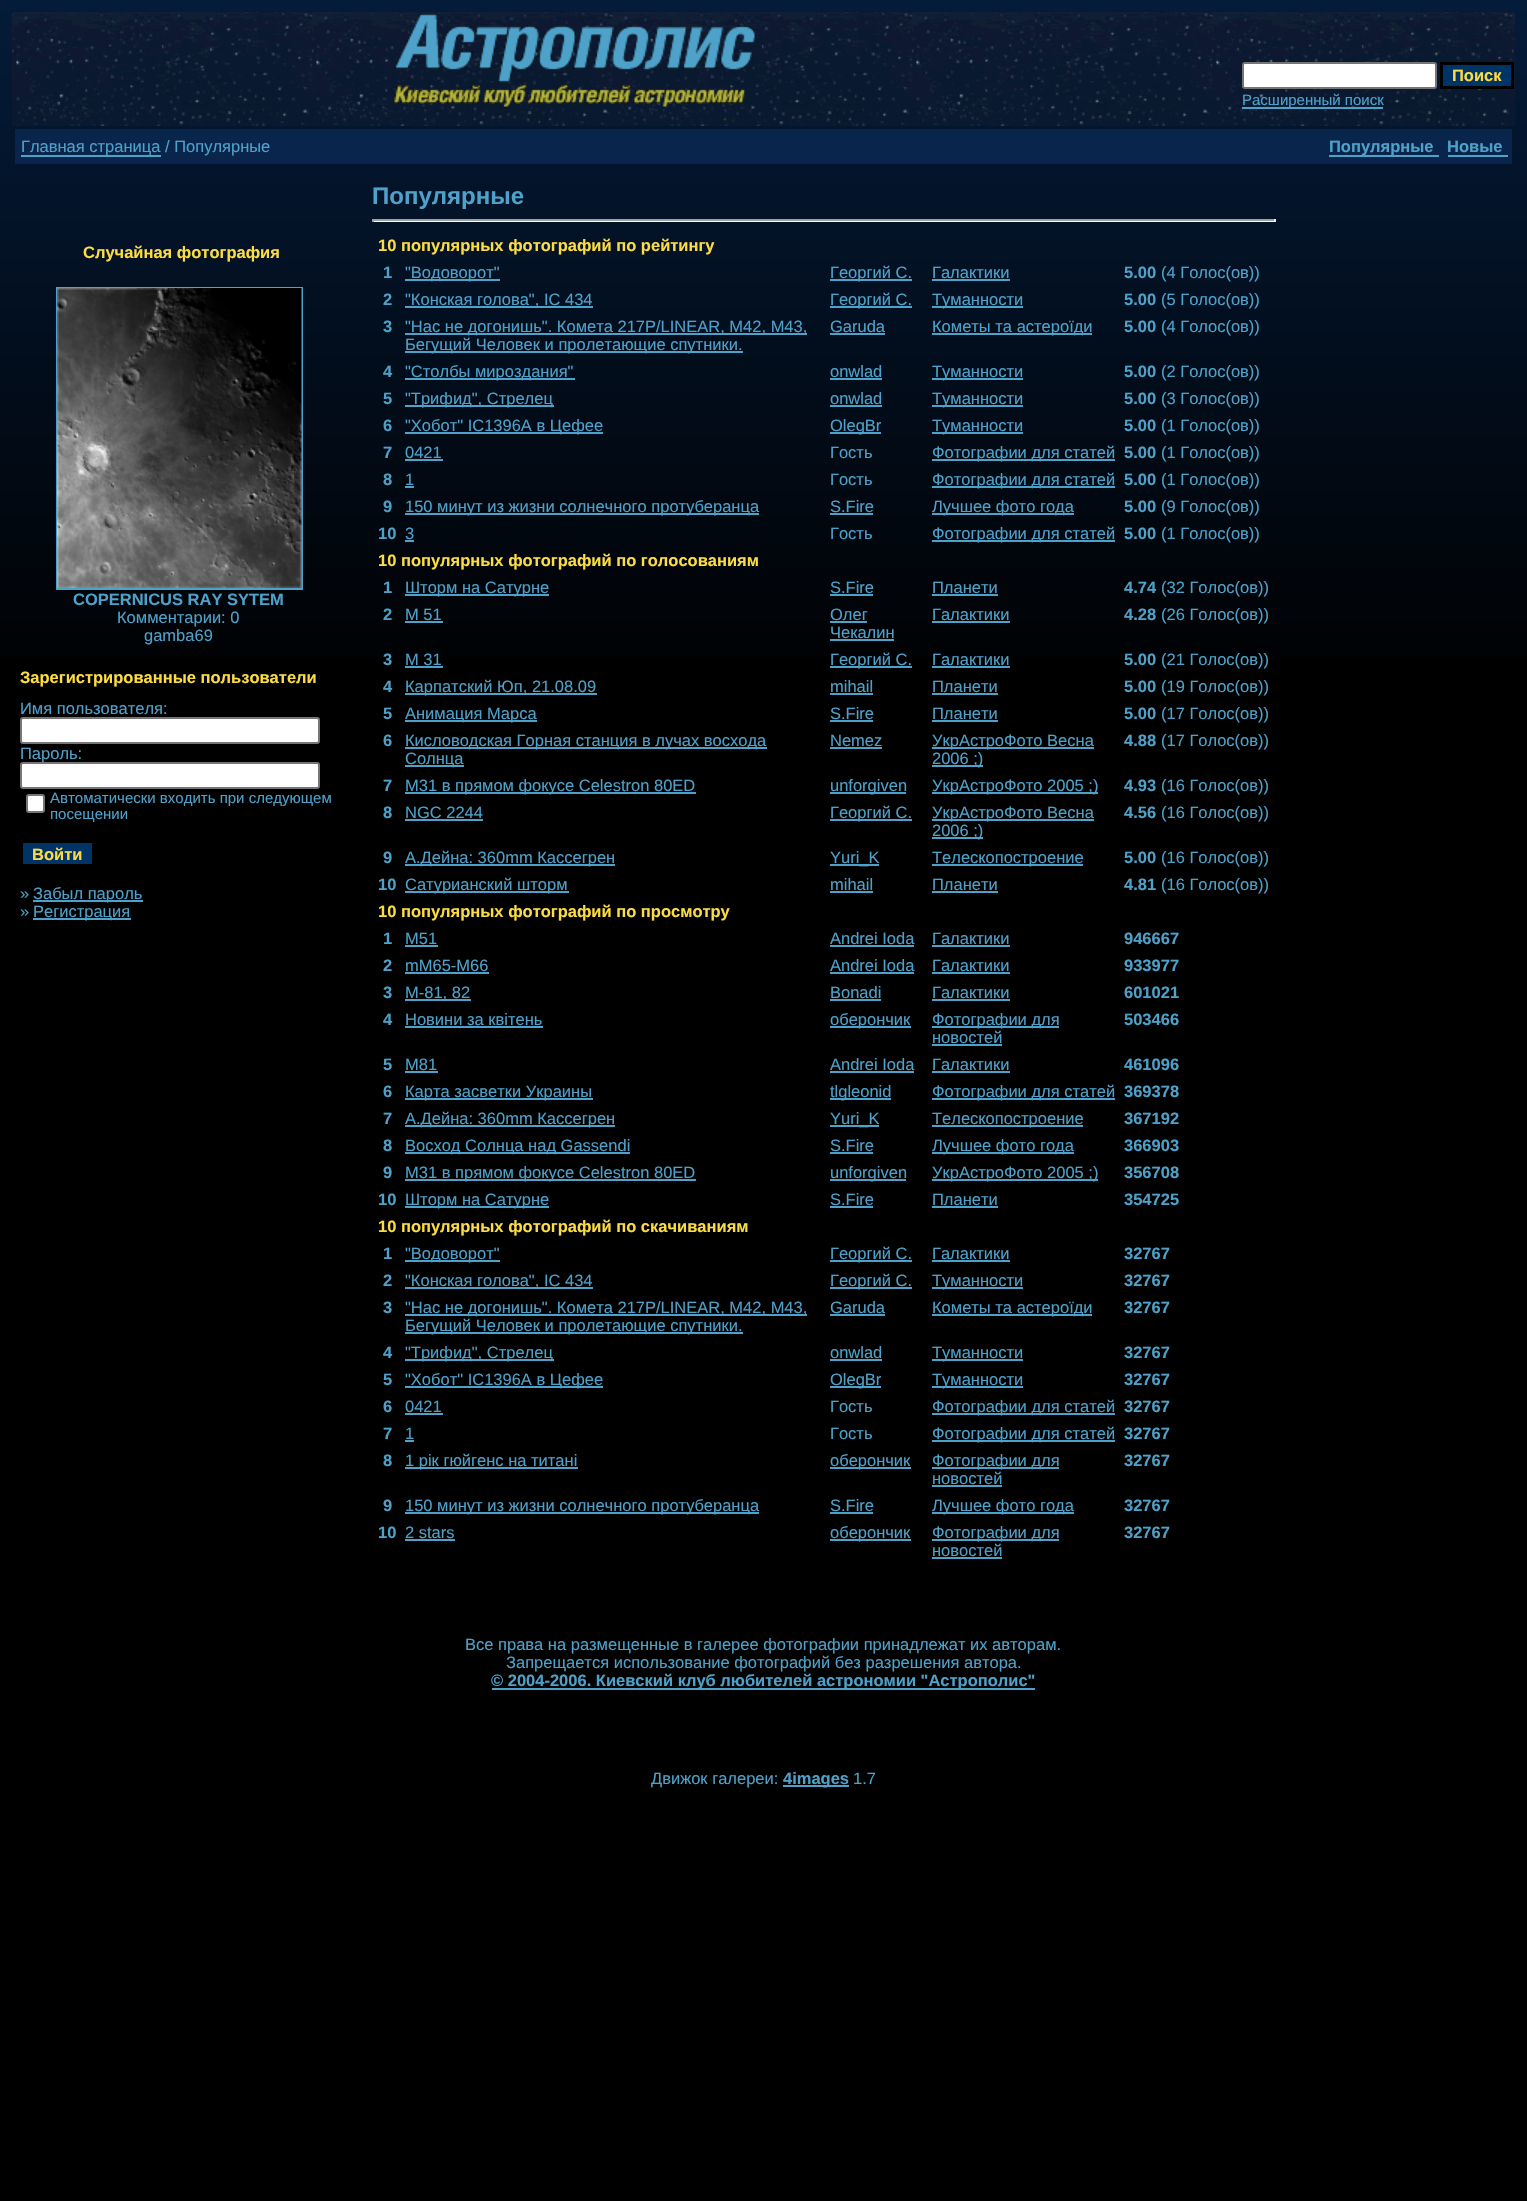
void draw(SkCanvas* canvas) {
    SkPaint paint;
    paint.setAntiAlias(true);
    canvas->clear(0xFF000000);
    canvas->drawImageRect(SkImages::DeferredFromEncodedData(SkData::MakeFromFileName("img1.png")), SkRect::MakeXYWH(0, 0, 1527, 657), SkSamplingOptions());
    canvas->drawImageRect(SkImages::DeferredFromEncodedData(SkData::MakeFromFileName("img2.png")), SkRect::MakeXYWH(12, 12, 1503, 114), SkSamplingOptions());
    canvas->drawImageRect(SkImages::DeferredFromEncodedData(SkData::MakeFromFileName("img3.png")), SkRect::MakeXYWH(394, 13, 361, 70), SkSamplingOptions());
    canvas->drawImageRect(SkImages::DeferredFromEncodedData(SkData::MakeFromFileName("img4.png")), SkRect::MakeXYWH(394, 84, 352, 23), SkSamplingOptions());
    paint.setColor(0xFFFFFFFF);
    canvas->drawRoundRect(SkRect::MakeXYWH(1243, 63, 193, 25), 2, 2, paint);
    paint.setStyle(SkPaint::kStroke_Style);
    paint.setStrokeWidth(2);
    paint.setColor(0xFF767676);
    canvas->drawRoundRect(SkRect::MakeXYWH(1243, 63, 193, 25), 2, 2, paint);
    paint.setStyle(SkPaint::kFill_Style);
    paint.setColor(0xFF003366);
    canvas->drawRect(SkRect::MakeXYWH(1441.5f, 63.5f, 71, 24), paint);
    paint.setStyle(SkPaint::kStroke_Style);
    paint.setStrokeWidth(3);
    paint.setColor(0xFF000000);
    canvas->drawRect(SkRect::MakeXYWH(1441.5f, 63.5f, 71, 24), paint);
    SkFont font1(fontMgr->matchFamilyStyle("Liberation Sans", SkFontStyle::Bold()), 16.5f);
    font1.setSubpixel(true);
    paint.setStyle(SkPaint::kFill_Style);
    paint.setColor(0xFFFCDC43);
    canvas->drawString("Поиск", 1452, 81, font1, paint);
    paint.setColor(0xFF4EA1C9);
    canvas->drawRect(SkRect::MakeXYWH(1242, 107, 141, 2), paint);
    SkFont font2(fontMgr->matchFamilyStyle("Liberation Sans", SkFontStyle::Normal()), 15);
    font2.setSubpixel(true);
    canvas->drawString("Расширенный поиск", 1242, 105, font2, paint);
    paint.setColor(0xFF0A254B);
    canvas->drawRect(SkRect::MakeXYWH(15, 129, 1497, 35), paint);
    paint.setColor(0xFF4EA1C9);
    canvas->drawRect(SkRect::MakeXYWH(21, 155, 140, 2), paint);
    SkFont font3(fontMgr->matchFamilyStyle("Liberation Sans", SkFontStyle::Normal()), 16.5f);
    font3.setSubpixel(true);
    canvas->drawString("Главная страница / Популярные", 21, 152, font3, paint);
    canvas->drawRect(SkRect::MakeXYWH(1329, 155, 110, 2), paint);
    canvas->drawString("Популярные", 1329, 152, font1, paint);
    canvas->drawString("Новые", 1447, 152, font1, paint);
    canvas->drawRect(SkRect::MakeXYWH(1448, 155, 60, 2), paint);
    paint.setColor(0xFFFCDC43);
    canvas->drawString("Случайная фотография", 83, 258, font1, paint);
    paint.setStyle(SkPaint::kStroke_Style);
    paint.setStrokeWidth(2);
    paint.setColor(0xFF4EA1C9);
    canvas->drawRect(SkRect::MakeXYWH(57, 288, 245, 301), paint);
    canvas->drawImageRect(SkImages::DeferredFromEncodedData(SkData::MakeFromFileName("img5.png")), SkRect::MakeXYWH(57, 288, 245, 300), SkSamplingOptions());
    paint.setStyle(SkPaint::kFill_Style);
    canvas->drawString("COPERNICUS RAY SYTEM", 73, 605, font1, paint);
    canvas->drawString("Комментарии: 0", 117, 623, font3, paint);
    canvas->drawString("gamba69", 144, 641, font3, paint);
    paint.setColor(0xFFFCDC43);
    canvas->drawString("Зарегистрированные пользователи", 20, 683, font1, paint);
    paint.setColor(0xFF4EA1C9);
    canvas->drawString("Имя пользователя:", 20, 714, font3, paint);
    paint.setColor(0xFFFFFFFF);
    canvas->drawRoundRect(SkRect::MakeXYWH(21, 718, 298, 25), 2, 2, paint);
    paint.setStyle(SkPaint::kStroke_Style);
    paint.setColor(0xFF767676);
    canvas->drawRoundRect(SkRect::MakeXYWH(21, 718, 298, 25), 2, 2, paint);
    paint.setStyle(SkPaint::kFill_Style);
    paint.setColor(0xFF4EA1C9);
    canvas->drawString("Пароль:", 20, 759, font3, paint);
    paint.setColor(0xFFFFFFFF);
    canvas->drawRoundRect(SkRect::MakeXYWH(21, 763, 298, 25), 2, 2, paint);
    paint.setStyle(SkPaint::kStroke_Style);
    paint.setColor(0xFF767676);
    canvas->drawRoundRect(SkRect::MakeXYWH(21, 763, 298, 25), 2, 2, paint);
    paint.setStyle(SkPaint::kFill_Style);
    paint.setColor(0xFFFFFFFF);
    canvas->drawRoundRect(SkRect::MakeXYWH(27, 795, 17, 17), 2, 2, paint);
    paint.setStyle(SkPaint::kStroke_Style);
    paint.setColor(0xFF767676);
    canvas->drawRoundRect(SkRect::MakeXYWH(27, 795, 17, 17), 2, 2, paint);
    paint.setStyle(SkPaint::kFill_Style);
    paint.setColor(0xFF4EA1C9);
    canvas->drawString("Автоматически входить при следующем", 50, 803, font2, paint);
    canvas->drawString("посещении", 50, 819, font2, paint);
    paint.setColor(0xFF003366);
    canvas->drawRect(SkRect::MakeXYWH(23, 843, 69, 21), paint);
    paint.setColor(0xFFFCDC43);
    canvas->drawString("Войти", 32, 860, font1, paint);
    paint.setColor(0xFF4EA1C9);
    canvas->drawString("»", 20, 899, font3, paint);
    canvas->drawRect(SkRect::MakeXYWH(33, 900, 110, 2), paint);
    canvas->drawString("Забыл пароль", 33, 899, font3, paint);
    canvas->drawString("»", 20, 917, font3, paint);
    canvas->drawRect(SkRect::MakeXYWH(33, 918, 98, 2), paint);
    canvas->drawString("Регистрация", 33, 917, font3, paint);
    SkFont font4(fontMgr->matchFamilyStyle("Liberation Sans", SkFontStyle::Bold()), 24);
    font4.setSubpixel(true);
    canvas->drawString("Популярные", 372, 204, font4, paint);
    paint.setColor(0xFFFFFFFF);
    canvas->drawRect(SkRect::MakeXYWH(372, 221, 903, 1), paint);
    paint.setColor(0xFF9F9F9F);
    canvas->drawRect(SkRect::MakeXYWH(372, 219, 903, 2), paint);
    paint.setColor(0xFFEEEEEE);
    canvas->drawRect(SkRect::MakeXYWH(1274, 219, 2, 3), paint);
    paint.setColor(0xFF9F9F9F);
    canvas->drawRect(SkRect::MakeXYWH(372, 219, 2, 3), paint);
    paint.setColor(0xFFFCDC43);
    canvas->drawString("10 популярных фотографий по рейтингу", 378, 251, font1, paint);
    paint.setColor(0xFF4EA1C9);
    canvas->drawString("1", 383, 278, font1, paint);
    canvas->drawRect(SkRect::MakeXYWH(405, 279, 95, 2), paint);
    canvas->drawString("\"Водоворот\"", 405, 278, font3, paint);
    canvas->drawRect(SkRect::MakeXYWH(830, 279, 82, 2), paint);
    canvas->drawString("Георгий С.", 830, 278, font3, paint);
    canvas->drawString("Галактики", 932, 278, font3, paint);
    canvas->drawRect(SkRect::MakeXYWH(932, 279, 78, 2), paint);
    canvas->drawString("5.00", 1124, 278, font1, paint);
    canvas->drawString("(4 Голос(ов))", 1161, 278, font3, paint);
    canvas->drawString("2", 383, 305, font1, paint);
    canvas->drawRect(SkRect::MakeXYWH(405, 306, 188, 2), paint);
    canvas->drawString("\"Конская голова\", IC 434", 405, 305, font3, paint);
    canvas->drawRect(SkRect::MakeXYWH(830, 306, 82, 2), paint);
    canvas->drawString("Георгий С.", 830, 305, font3, paint);
    canvas->drawRect(SkRect::MakeXYWH(932, 306, 91, 2), paint);
    canvas->drawString("Туманности", 932, 305, font3, paint);
    canvas->drawString("5.00", 1124, 305, font1, paint);
    canvas->drawString("(5 Голос(ов))", 1161, 305, font3, paint);
    canvas->drawString("3", 383, 332, font1, paint);
    canvas->drawRect(SkRect::MakeXYWH(405, 333, 402, 2), paint);
    canvas->drawString("\"Нас не догонишь\". Комета 217P/LINEAR, M42, M43,", 405, 332, font3, paint);
    canvas->drawRect(SkRect::MakeXYWH(405, 351, 338, 2), paint);
    canvas->drawString("Бегущий Человек и пролетающие спутники.", 405, 350, font3, paint);
    canvas->drawString("Garuda", 830, 332, font3, paint);
    canvas->drawRect(SkRect::MakeXYWH(830, 333, 55, 2), paint);
    canvas->drawRect(SkRect::MakeXYWH(932, 333, 160, 2), paint);
    canvas->drawString("Кометы та астероїди", 932, 332, font3, paint);
    canvas->drawString("5.00", 1124, 332, font1, paint);
    canvas->drawString("(4 Голос(ов))", 1161, 332, font3, paint);
    canvas->drawString("4", 383, 377, font1, paint);
    canvas->drawRect(SkRect::MakeXYWH(405, 378, 170, 2), paint);
    canvas->drawString("\"Столбы мироздания\"", 405, 377, font3, paint);
    canvas->drawString("onwlad", 830, 377, font3, paint);
    canvas->drawRect(SkRect::MakeXYWH(830, 378, 52, 2), paint);
    canvas->drawRect(SkRect::MakeXYWH(932, 378, 91, 2), paint);
    canvas->drawString("Туманности", 932, 377, font3, paint);
    canvas->drawString("5.00", 1124, 377, font1, paint);
    canvas->drawString("(2 Голос(ов))", 1161, 377, font3, paint);
    canvas->drawString("5", 383, 404, font1, paint);
    canvas->drawRect(SkRect::MakeXYWH(405, 405, 149, 2), paint);
    canvas->drawString("\"Трифид\", Стрелец", 405, 404, font3, paint);
    canvas->drawString("onwlad", 830, 404, font3, paint);
    canvas->drawRect(SkRect::MakeXYWH(830, 405, 52, 2), paint);
    canvas->drawRect(SkRect::MakeXYWH(932, 405, 91, 2), paint);
    canvas->drawString("Туманности", 932, 404, font3, paint);
    canvas->drawString("5.00", 1124, 404, font1, paint);
    canvas->drawString("(3 Голос(ов))", 1161, 404, font3, paint);
    canvas->drawString("6", 383, 431, font1, paint);
    canvas->drawRect(SkRect::MakeXYWH(405, 432, 198, 2), paint);
    canvas->drawString("\"Хобот\" IC1396A в Цефее", 405, 431, font3, paint);
    canvas->drawRect(SkRect::MakeXYWH(830, 432, 51, 2), paint);
    canvas->drawString("OlegBr", 830, 431, font3, paint);
    canvas->drawRect(SkRect::MakeXYWH(932, 432, 91, 2), paint);
    canvas->drawString("Туманности", 932, 431, font3, paint);
    canvas->drawString("5.00", 1124, 431, font1, paint);
    canvas->drawString("(1 Голос(ов))", 1161, 431, font3, paint);
    canvas->drawString("7", 383, 458, font1, paint);
    canvas->drawString("0421", 405, 458, font3, paint);
    canvas->drawRect(SkRect::MakeXYWH(405, 459, 38, 2), paint);
    canvas->drawString("Гость", 830, 458, font3, paint);
    canvas->drawRect(SkRect::MakeXYWH(932, 459, 183, 2), paint);
    canvas->drawString("Фотографии для статей", 932, 458, font3, paint);
    canvas->drawString("5.00", 1124, 458, font1, paint);
    canvas->drawString("(1 Голос(ов))", 1161, 458, font3, paint);
    canvas->drawString("8", 383, 485, font1, paint);
    canvas->drawString("1", 405, 485, font3, paint);
    canvas->drawRect(SkRect::MakeXYWH(405, 486, 9, 2), paint);
    canvas->drawString("Гость", 830, 485, font3, paint);
    canvas->drawRect(SkRect::MakeXYWH(932, 486, 183, 2), paint);
    canvas->drawString("Фотографии для статей", 932, 485, font3, paint);
    canvas->drawString("5.00", 1124, 485, font1, paint);
    canvas->drawString("(1 Голос(ов))", 1161, 485, font3, paint);
    canvas->drawString("9", 383, 512, font1, paint);
    canvas->drawRect(SkRect::MakeXYWH(405, 513, 354, 2), paint);
    canvas->drawString("150 минут из жизни солнечного протуберанца", 405, 512, font3, paint);
    canvas->drawString("S.Fire", 830, 512, font3, paint);
    canvas->drawRect(SkRect::MakeXYWH(830, 513, 43, 2), paint);
    canvas->drawRect(SkRect::MakeXYWH(932, 513, 142, 2), paint);
    canvas->drawString("Лучшее фото года", 932, 512, font3, paint);
    canvas->drawString("5.00", 1124, 512, font1, paint);
    canvas->drawString("(9 Голос(ов))", 1161, 512, font3, paint);
    canvas->drawString("10", 378, 539, font1, paint);
    canvas->drawString("3", 405, 539, font3, paint);
    canvas->drawRect(SkRect::MakeXYWH(405, 540, 9, 2), paint);
    canvas->drawString("Гость", 830, 539, font3, paint);
    canvas->drawRect(SkRect::MakeXYWH(932, 540, 183, 2), paint);
    canvas->drawString("Фотографии для статей", 932, 539, font3, paint);
    canvas->drawString("5.00", 1124, 539, font1, paint);
    canvas->drawString("(1 Голос(ов))", 1161, 539, font3, paint);
    paint.setColor(0xFFFCDC43);
    canvas->drawString("10 популярных фотографий по голосованиям", 378, 566, font1, paint);
    paint.setColor(0xFF4EA1C9);
    canvas->drawString("1", 383, 593, font1, paint);
    canvas->drawRect(SkRect::MakeXYWH(405, 594, 144, 2), paint);
    canvas->drawString("Шторм на Сатурне", 405, 593, font3, paint);
    canvas->drawString("S.Fire", 830, 593, font3, paint);
    canvas->drawRect(SkRect::MakeXYWH(830, 594, 43, 2), paint);
    canvas->drawString("Планети", 932, 593, font3, paint);
    canvas->drawRect(SkRect::MakeXYWH(932, 594, 66, 2), paint);
    canvas->drawString("4.74", 1124, 593, font1, paint);
    canvas->drawString("(32 Голос(ов))", 1161, 593, font3, paint);
    canvas->drawString("2", 383, 620, font1, paint);
    canvas->drawString("М 51", 405, 620, font3, paint);
    canvas->drawRect(SkRect::MakeXYWH(405, 621, 38, 2), paint);
    canvas->drawString("Олег", 830, 620, font3, paint);
    canvas->drawRect(SkRect::MakeXYWH(830, 621, 37, 2), paint);
    canvas->drawString("Чекалин", 830, 638, font3, paint);
    canvas->drawRect(SkRect::MakeXYWH(830, 639, 64, 2), paint);
    canvas->drawString("Галактики", 932, 620, font3, paint);
    canvas->drawRect(SkRect::MakeXYWH(932, 621, 78, 2), paint);
    canvas->drawString("4.28", 1124, 620, font1, paint);
    canvas->drawString("(26 Голос(ов))", 1161, 620, font3, paint);
    canvas->drawString("3", 383, 665, font1, paint);
    canvas->drawString("M 31", 405, 665, font3, paint);
    canvas->drawRect(SkRect::MakeXYWH(405, 666, 38, 2), paint);
    canvas->drawRect(SkRect::MakeXYWH(830, 666, 82, 2), paint);
    canvas->drawString("Георгий С.", 830, 665, font3, paint);
    canvas->drawString("Галактики", 932, 665, font3, paint);
    canvas->drawRect(SkRect::MakeXYWH(932, 666, 78, 2), paint);
    canvas->drawString("5.00", 1124, 665, font1, paint);
    canvas->drawString("(21 Голос(ов))", 1161, 665, font3, paint);
    canvas->drawString("4", 383, 692, font1, paint);
    canvas->drawRect(SkRect::MakeXYWH(405, 693, 192, 2), paint);
    canvas->drawString("Карпатский Юп, 21.08.09", 405, 692, font3, paint);
    canvas->drawString("mihail", 830, 692, font3, paint);
    canvas->drawRect(SkRect::MakeXYWH(830, 693, 43, 2), paint);
    canvas->drawString("Планети", 932, 692, font3, paint);
    canvas->drawRect(SkRect::MakeXYWH(932, 693, 66, 2), paint);
    canvas->drawString("5.00", 1124, 692, font1, paint);
    canvas->drawString("(19 Голос(ов))", 1161, 692, font3, paint);
    canvas->drawString("5", 383, 719, font1, paint);
    canvas->drawRect(SkRect::MakeXYWH(405, 720, 132, 2), paint);
    canvas->drawString("Анимация Марса", 405, 719, font3, paint);
    canvas->drawString("S.Fire", 830, 719, font3, paint);
    canvas->drawRect(SkRect::MakeXYWH(830, 720, 43, 2), paint);
    canvas->drawString("Планети", 932, 719, font3, paint);
    canvas->drawRect(SkRect::MakeXYWH(932, 720, 66, 2), paint);
    canvas->drawString("5.00", 1124, 719, font1, paint);
    canvas->drawString("(17 Голос(ов))", 1161, 719, font3, paint);
    canvas->drawString("6", 383, 746, font1, paint);
    canvas->drawRect(SkRect::MakeXYWH(405, 747, 362, 2), paint);
    canvas->drawString("Кисловодская Горная станция в лучах восхода", 405, 746, font3, paint);
    canvas->drawRect(SkRect::MakeXYWH(405, 765, 59, 2), paint);
    canvas->drawString("Солнца", 405, 764, font3, paint);
    canvas->drawString("Nemez", 830, 746, font3, paint);
    canvas->drawRect(SkRect::MakeXYWH(830, 747, 52, 2), paint);
    canvas->drawRect(SkRect::MakeXYWH(932, 747, 162, 2), paint);
    canvas->drawString("УкрАстроФото Весна", 932, 746, font3, paint);
    canvas->drawRect(SkRect::MakeXYWH(932, 765, 51, 2), paint);
    canvas->drawString("2006 ;)", 932, 764, font3, paint);
    canvas->drawString("4.88", 1124, 746, font1, paint);
    canvas->drawString("(17 Голос(ов))", 1161, 746, font3, paint);
    canvas->drawString("7", 383, 791, font1, paint);
    canvas->drawRect(SkRect::MakeXYWH(405, 792, 291, 2), paint);
    canvas->drawString("M31 в прямом фокусе Celestron 80ED", 405, 791, font3, paint);
    canvas->drawRect(SkRect::MakeXYWH(830, 792, 76, 2), paint);
    canvas->drawString("unforgiven", 830, 791, font3, paint);
    canvas->drawRect(SkRect::MakeXYWH(932, 792, 166, 2), paint);
    canvas->drawString("УкрАстроФото 2005 ;)", 932, 791, font3, paint);
    canvas->drawString("4.93", 1124, 791, font1, paint);
    canvas->drawString("(16 Голос(ов))", 1161, 791, font3, paint);
    canvas->drawString("8", 383, 818, font1, paint);
    canvas->drawString("NGC 2244", 405, 818, font3, paint);
    canvas->drawRect(SkRect::MakeXYWH(405, 819, 78, 2), paint);
    canvas->drawRect(SkRect::MakeXYWH(830, 819, 82, 2), paint);
    canvas->drawString("Георгий С.", 830, 818, font3, paint);
    canvas->drawRect(SkRect::MakeXYWH(932, 819, 162, 2), paint);
    canvas->drawString("УкрАстроФото Весна", 932, 818, font3, paint);
    canvas->drawRect(SkRect::MakeXYWH(932, 837, 51, 2), paint);
    canvas->drawString("2006 ;)", 932, 836, font3, paint);
    canvas->drawString("4.56", 1124, 818, font1, paint);
    canvas->drawString("(16 Голос(ов))", 1161, 818, font3, paint);
    canvas->drawString("9", 383, 863, font1, paint);
    canvas->drawRect(SkRect::MakeXYWH(405, 864, 210, 2), paint);
    canvas->drawString("А.Дейна: 360mm Кассегрен", 405, 863, font3, paint);
    canvas->drawRect(SkRect::MakeXYWH(830, 864, 49, 2), paint);
    canvas->drawString("Yuri_K", 830, 863, font3, paint);
    canvas->drawRect(SkRect::MakeXYWH(932, 864, 151, 2), paint);
    canvas->drawString("Телескопостроение", 932, 863, font3, paint);
    canvas->drawString("5.00", 1124, 863, font1, paint);
    canvas->drawString("(16 Голос(ов))", 1161, 863, font3, paint);
    canvas->drawString("10", 378, 890, font1, paint);
    canvas->drawRect(SkRect::MakeXYWH(405, 891, 164, 2), paint);
    canvas->drawString("Сатурианский шторм", 405, 890, font3, paint);
    canvas->drawString("mihail", 830, 890, font3, paint);
    canvas->drawRect(SkRect::MakeXYWH(830, 891, 43, 2), paint);
    canvas->drawString("Планети", 932, 890, font3, paint);
    canvas->drawRect(SkRect::MakeXYWH(932, 891, 66, 2), paint);
    canvas->drawString("4.81", 1124, 890, font1, paint);
    canvas->drawString("(16 Голос(ов))", 1161, 890, font3, paint);
    paint.setColor(0xFFFCDC43);
    canvas->drawString("10 популярных фотографий по просмотру", 378, 917, font1, paint);
    paint.setColor(0xFF4EA1C9);
    canvas->drawString("1", 383, 944, font1, paint);
    canvas->drawString("M51", 405, 944, font3, paint);
    canvas->drawRect(SkRect::MakeXYWH(405, 945, 33, 2), paint);
    canvas->drawString("Andrei Ioda", 830, 944, font3, paint);
    canvas->drawRect(SkRect::MakeXYWH(830, 945, 84, 2), paint);
    canvas->drawString("Галактики", 932, 944, font3, paint);
    canvas->drawRect(SkRect::MakeXYWH(932, 945, 78, 2), paint);
    canvas->drawString("946667", 1124, 944, font1, paint);
    canvas->drawString("2", 383, 971, font1, paint);
    canvas->drawString("mM65-M66", 405, 971, font3, paint);
    canvas->drawRect(SkRect::MakeXYWH(405, 972, 84, 2), paint);
    canvas->drawString("Andrei Ioda", 830, 971, font3, paint);
    canvas->drawRect(SkRect::MakeXYWH(830, 972, 84, 2), paint);
    canvas->drawString("Галактики", 932, 971, font3, paint);
    canvas->drawRect(SkRect::MakeXYWH(932, 972, 78, 2), paint);
    canvas->drawString("933977", 1124, 971, font1, paint);
    canvas->drawString("3", 383, 998, font1, paint);
    canvas->drawRect(SkRect::MakeXYWH(405, 999, 66, 2), paint);
    canvas->drawString("М-81, 82", 405, 998, font3, paint);
    canvas->drawString("Bonadi", 830, 998, font3, paint);
    canvas->drawRect(SkRect::MakeXYWH(830, 999, 51, 2), paint);
    canvas->drawString("Галактики", 932, 998, font3, paint);
    canvas->drawRect(SkRect::MakeXYWH(932, 999, 78, 2), paint);
    canvas->drawString("601021", 1124, 998, font1, paint);
    canvas->drawString("4", 383, 1025, font1, paint);
    canvas->drawString("Новини за квiтень", 405, 1025, font3, paint);
    canvas->drawRect(SkRect::MakeXYWH(405, 1026, 138, 2), paint);
    canvas->drawRect(SkRect::MakeXYWH(830, 1026, 81, 2), paint);
    canvas->drawString("оберончик", 830, 1025, font3, paint);
    canvas->drawRect(SkRect::MakeXYWH(932, 1026, 127, 2), paint);
    canvas->drawString("Фотографии для", 932, 1025, font3, paint);
    canvas->drawString("новостей", 932, 1043, font3, paint);
    canvas->drawRect(SkRect::MakeXYWH(932, 1044, 70, 2), paint);
    canvas->drawString("503466", 1124, 1025, font1, paint);
    canvas->drawString("5", 383, 1070, font1, paint);
    canvas->drawString("M81", 405, 1070, font3, paint);
    canvas->drawRect(SkRect::MakeXYWH(405, 1071, 33, 2), paint);
    canvas->drawString("Andrei Ioda", 830, 1070, font3, paint);
    canvas->drawRect(SkRect::MakeXYWH(830, 1071, 84, 2), paint);
    canvas->drawString("Галактики", 932, 1070, font3, paint);
    canvas->drawRect(SkRect::MakeXYWH(932, 1071, 78, 2), paint);
    canvas->drawString("461096", 1124, 1070, font1, paint);
    canvas->drawString("6", 383, 1097, font1, paint);
    canvas->drawRect(SkRect::MakeXYWH(405, 1098, 188, 2), paint);
    canvas->drawString("Карта засветки Украины", 405, 1097, font3, paint);
    canvas->drawRect(SkRect::MakeXYWH(830, 1098, 61, 2), paint);
    canvas->drawString("tlgleonid", 830, 1097, font3, paint);
    canvas->drawRect(SkRect::MakeXYWH(932, 1098, 183, 2), paint);
    canvas->drawString("Фотографии для статей", 932, 1097, font3, paint);
    canvas->drawString("369378", 1124, 1097, font1, paint);
    canvas->drawString("7", 383, 1124, font1, paint);
    canvas->drawRect(SkRect::MakeXYWH(405, 1125, 210, 2), paint);
    canvas->drawString("А.Дейна: 360mm Кассегрен", 405, 1124, font3, paint);
    canvas->drawRect(SkRect::MakeXYWH(830, 1125, 49, 2), paint);
    canvas->drawString("Yuri_K", 830, 1124, font3, paint);
    canvas->drawRect(SkRect::MakeXYWH(932, 1125, 151, 2), paint);
    canvas->drawString("Телескопостроение", 932, 1124, font3, paint);
    canvas->drawString("367192", 1124, 1124, font1, paint);
    canvas->drawString("8", 383, 1151, font1, paint);
    canvas->drawRect(SkRect::MakeXYWH(405, 1152, 225, 2), paint);
    canvas->drawString("Восход Солнца над Gassendi", 405, 1151, font3, paint);
    canvas->drawString("S.Fire", 830, 1151, font3, paint);
    canvas->drawRect(SkRect::MakeXYWH(830, 1152, 43, 2), paint);
    canvas->drawRect(SkRect::MakeXYWH(932, 1152, 142, 2), paint);
    canvas->drawString("Лучшее фото года", 932, 1151, font3, paint);
    canvas->drawString("366903", 1124, 1151, font1, paint);
    canvas->drawString("9", 383, 1178, font1, paint);
    canvas->drawRect(SkRect::MakeXYWH(405, 1179, 291, 2), paint);
    canvas->drawString("M31 в прямом фокусе Celestron 80ED", 405, 1178, font3, paint);
    canvas->drawRect(SkRect::MakeXYWH(830, 1179, 76, 2), paint);
    canvas->drawString("unforgiven", 830, 1178, font3, paint);
    canvas->drawRect(SkRect::MakeXYWH(932, 1179, 166, 2), paint);
    canvas->drawString("УкрАстроФото 2005 ;)", 932, 1178, font3, paint);
    canvas->drawString("356708", 1124, 1178, font1, paint);
    canvas->drawString("10", 378, 1205, font1, paint);
    canvas->drawRect(SkRect::MakeXYWH(405, 1206, 144, 2), paint);
    canvas->drawString("Шторм на Сатурне", 405, 1205, font3, paint);
    canvas->drawString("S.Fire", 830, 1205, font3, paint);
    canvas->drawRect(SkRect::MakeXYWH(830, 1206, 43, 2), paint);
    canvas->drawString("Планети", 932, 1205, font3, paint);
    canvas->drawRect(SkRect::MakeXYWH(932, 1206, 66, 2), paint);
    canvas->drawString("354725", 1124, 1205, font1, paint);
    paint.setColor(0xFFFCDC43);
    canvas->drawString("10 популярных фотографий по скачиваниям", 378, 1232, font1, paint);
    paint.setColor(0xFF4EA1C9);
    canvas->drawString("1", 383, 1259, font1, paint);
    canvas->drawRect(SkRect::MakeXYWH(405, 1260, 95, 2), paint);
    canvas->drawString("\"Водоворот\"", 405, 1259, font3, paint);
    canvas->drawRect(SkRect::MakeXYWH(830, 1260, 82, 2), paint);
    canvas->drawString("Георгий С.", 830, 1259, font3, paint);
    canvas->drawString("Галактики", 932, 1259, font3, paint);
    canvas->drawRect(SkRect::MakeXYWH(932, 1260, 78, 2), paint);
    canvas->drawString("32767", 1124, 1259, font1, paint);
    canvas->drawString("2", 383, 1286, font1, paint);
    canvas->drawRect(SkRect::MakeXYWH(405, 1287, 188, 2), paint);
    canvas->drawString("\"Конская голова\", IC 434", 405, 1286, font3, paint);
    canvas->drawRect(SkRect::MakeXYWH(830, 1287, 82, 2), paint);
    canvas->drawString("Георгий С.", 830, 1286, font3, paint);
    canvas->drawRect(SkRect::MakeXYWH(932, 1287, 91, 2), paint);
    canvas->drawString("Туманности", 932, 1286, font3, paint);
    canvas->drawString("32767", 1124, 1286, font1, paint);
    canvas->drawString("3", 383, 1313, font1, paint);
    canvas->drawRect(SkRect::MakeXYWH(405, 1314, 402, 2), paint);
    canvas->drawString("\"Нас не догонишь\". Комета 217P/LINEAR, M42, M43,", 405, 1313, font3, paint);
    canvas->drawRect(SkRect::MakeXYWH(405, 1332, 338, 2), paint);
    canvas->drawString("Бегущий Человек и пролетающие спутники.", 405, 1331, font3, paint);
    canvas->drawString("Garuda", 830, 1313, font3, paint);
    canvas->drawRect(SkRect::MakeXYWH(830, 1314, 55, 2), paint);
    canvas->drawRect(SkRect::MakeXYWH(932, 1314, 160, 2), paint);
    canvas->drawString("Кометы та астероїди", 932, 1313, font3, paint);
    canvas->drawString("32767", 1124, 1313, font1, paint);
    canvas->drawString("4", 383, 1358, font1, paint);
    canvas->drawRect(SkRect::MakeXYWH(405, 1359, 149, 2), paint);
    canvas->drawString("\"Трифид\", Стрелец", 405, 1358, font3, paint);
    canvas->drawString("onwlad", 830, 1358, font3, paint);
    canvas->drawRect(SkRect::MakeXYWH(830, 1359, 52, 2), paint);
    canvas->drawRect(SkRect::MakeXYWH(932, 1359, 91, 2), paint);
    canvas->drawString("Туманности", 932, 1358, font3, paint);
    canvas->drawString("32767", 1124, 1358, font1, paint);
    canvas->drawString("5", 383, 1385, font1, paint);
    canvas->drawRect(SkRect::MakeXYWH(405, 1386, 198, 2), paint);
    canvas->drawString("\"Хобот\" IC1396A в Цефее", 405, 1385, font3, paint);
    canvas->drawRect(SkRect::MakeXYWH(830, 1386, 51, 2), paint);
    canvas->drawString("OlegBr", 830, 1385, font3, paint);
    canvas->drawRect(SkRect::MakeXYWH(932, 1386, 91, 2), paint);
    canvas->drawString("Туманности", 932, 1385, font3, paint);
    canvas->drawString("32767", 1124, 1385, font1, paint);
    canvas->drawString("6", 383, 1412, font1, paint);
    canvas->drawString("0421", 405, 1412, font3, paint);
    canvas->drawRect(SkRect::MakeXYWH(405, 1413, 38, 2), paint);
    canvas->drawString("Гость", 830, 1412, font3, paint);
    canvas->drawRect(SkRect::MakeXYWH(932, 1413, 183, 2), paint);
    canvas->drawString("Фотографии для статей", 932, 1412, font3, paint);
    canvas->drawString("32767", 1124, 1412, font1, paint);
    canvas->drawString("7", 383, 1439, font1, paint);
    canvas->drawString("1", 405, 1439, font3, paint);
    canvas->drawRect(SkRect::MakeXYWH(405, 1440, 9, 2), paint);
    canvas->drawString("Гость", 830, 1439, font3, paint);
    canvas->drawRect(SkRect::MakeXYWH(932, 1440, 183, 2), paint);
    canvas->drawString("Фотографии для статей", 932, 1439, font3, paint);
    canvas->drawString("32767", 1124, 1439, font1, paint);
    canvas->drawString("8", 383, 1466, font1, paint);
    canvas->drawRect(SkRect::MakeXYWH(405, 1467, 173, 2), paint);
    canvas->drawString("1 рік гюйгенс на титані", 405, 1466, font3, paint);
    canvas->drawRect(SkRect::MakeXYWH(830, 1467, 81, 2), paint);
    canvas->drawString("оберончик", 830, 1466, font3, paint);
    canvas->drawRect(SkRect::MakeXYWH(932, 1467, 127, 2), paint);
    canvas->drawString("Фотографии для", 932, 1466, font3, paint);
    canvas->drawString("новостей", 932, 1484, font3, paint);
    canvas->drawRect(SkRect::MakeXYWH(932, 1485, 70, 2), paint);
    canvas->drawString("32767", 1124, 1466, font1, paint);
    canvas->drawString("9", 383, 1511, font1, paint);
    canvas->drawRect(SkRect::MakeXYWH(405, 1512, 354, 2), paint);
    canvas->drawString("150 минут из жизни солнечного протуберанца", 405, 1511, font3, paint);
    canvas->drawString("S.Fire", 830, 1511, font3, paint);
    canvas->drawRect(SkRect::MakeXYWH(830, 1512, 43, 2), paint);
    canvas->drawRect(SkRect::MakeXYWH(932, 1512, 142, 2), paint);
    canvas->drawString("Лучшее фото года", 932, 1511, font3, paint);
    canvas->drawString("32767", 1124, 1511, font1, paint);
    canvas->drawString("10", 378, 1538, font1, paint);
    canvas->drawString("2 stars", 405, 1538, font3, paint);
    canvas->drawRect(SkRect::MakeXYWH(405, 1539, 50, 2), paint);
    canvas->drawRect(SkRect::MakeXYWH(830, 1539, 81, 2), paint);
    canvas->drawString("оберончик", 830, 1538, font3, paint);
    canvas->drawRect(SkRect::MakeXYWH(932, 1539, 127, 2), paint);
    canvas->drawString("Фотографии для", 932, 1538, font3, paint);
    canvas->drawString("новостей", 932, 1556, font3, paint);
    canvas->drawRect(SkRect::MakeXYWH(932, 1557, 70, 2), paint);
    canvas->drawString("32767", 1124, 1538, font1, paint);
    canvas->drawString("Все права на размещенные в галерее фотографии принадлежат их авторам.", 465, 1650, font3, paint);
    canvas->drawString("Запрещается использование фотографий без разрешения автора.", 506, 1668, font3, paint);
    canvas->drawRect(SkRect::MakeXYWH(492, 1688, 543, 2), paint);
    canvas->drawString("© 2004-2006. Киевский клуб любителей астрономии \"Астрополис\"", 491, 1686, font1, paint);
    canvas->drawString("Движок галереи:", 651, 1784, font3, paint);
    canvas->drawRect(SkRect::MakeXYWH(783, 1785, 66, 2), paint);
    canvas->drawString("4images", 783, 1784, font1, paint);
    canvas->drawString("1.7", 853, 1784, font3, paint);
}
